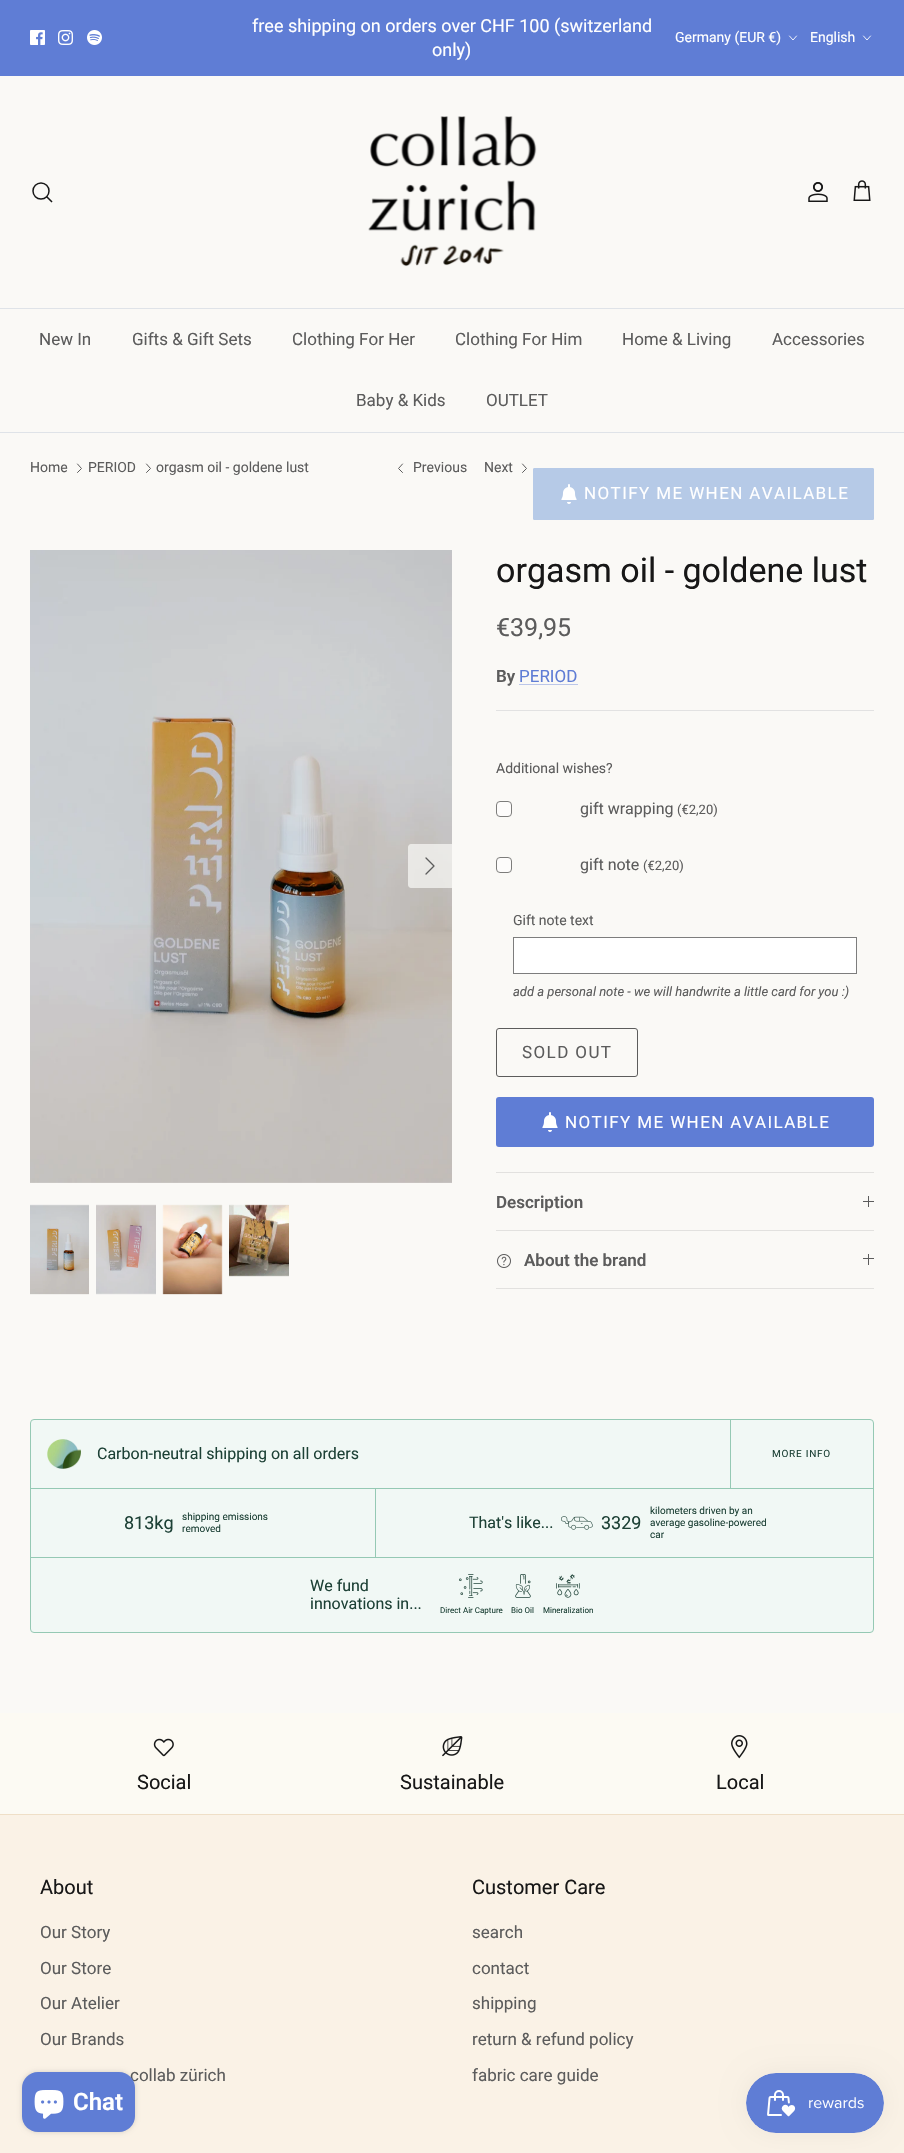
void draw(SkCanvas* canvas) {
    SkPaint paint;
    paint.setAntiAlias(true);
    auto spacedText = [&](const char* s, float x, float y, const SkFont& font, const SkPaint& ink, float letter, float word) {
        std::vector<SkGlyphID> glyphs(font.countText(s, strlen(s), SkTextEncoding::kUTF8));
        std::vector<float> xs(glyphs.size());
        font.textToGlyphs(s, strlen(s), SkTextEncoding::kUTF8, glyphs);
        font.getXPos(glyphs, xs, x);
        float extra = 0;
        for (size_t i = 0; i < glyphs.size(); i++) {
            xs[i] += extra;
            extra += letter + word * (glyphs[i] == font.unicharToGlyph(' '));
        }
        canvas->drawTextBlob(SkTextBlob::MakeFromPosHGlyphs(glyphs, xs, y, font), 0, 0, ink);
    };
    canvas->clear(0xFFFAF9F6);
    paint.setColor(0xFF5F7DD5);
    canvas->drawRect(SkRect::MakeXYWH(0, 0, 904, 76), paint);
    canvas->drawImageRect(SkImages::DeferredFromEncodedData(SkData::MakeFromFileName("img1.png")), SkRect::MakeXYWH(30, 30, 15, 15), SkSamplingOptions());
    canvas->drawImageRect(SkImages::DeferredFromEncodedData(SkData::MakeFromFileName("img2.png")), SkRect::MakeXYWH(58, 30, 15, 15), SkSamplingOptions());
    canvas->drawImageRect(SkImages::DeferredFromEncodedData(SkData::MakeFromFileName("img3.png")), SkRect::MakeXYWH(87, 30, 15, 15), SkSamplingOptions());
    SkFont font1(fontMgr->matchFamilyStyle("Roboto", SkFontStyle::Normal()), 18);
    font1.setSubpixel(true);
    paint.setColor(0xFFFFFFFF);
    canvas->drawString("free shipping on orders over CHF 100 (switzerland", 252, 32, font1, paint);
    canvas->drawString("only)", 432, 56, font1, paint);
    SkFont font2(fontMgr->matchFamilyStyle("Roboto", SkFontStyle::Normal()), 14);
    font2.setSubpixel(true);
    canvas->drawString("Germany (EUR €)", 675, 42, font2, paint);
    paint.setStyle(SkPaint::kStroke_Style);
    paint.setStrokeWidth(0.9f);
    paint.setStrokeCap(SkPaint::kRound_Cap);
    paint.setStrokeJoin(SkPaint::kRound_Join);
    canvas->drawPath(SkPathBuilder().moveTo(789.5f, 36).lineTo(793, 40).lineTo(796.5f, 36).detach(), paint);
    paint.setStyle(SkPaint::kFill_Style);
    canvas->drawString("English", 810, 42, font2, paint);
    paint.setStyle(SkPaint::kStroke_Style);
    canvas->drawPath(SkPathBuilder().moveTo(863.5f, 36).lineTo(867, 40).lineTo(870.5f, 36).detach(), paint);
    paint.setStyle(SkPaint::kFill_Style);
    paint.setColor(0xFFDFE3E8);
    canvas->drawRect(SkRect::MakeXYWH(0, 308, 904, 1), paint);
    paint.setStyle(SkPaint::kStroke_Style);
    paint.setStrokeWidth(1.5f);
    paint.setStrokeCap(SkPaint::kButt_Cap);
    paint.setStrokeJoin(SkPaint::kMiter_Join);
    paint.setColor(0xFF171717);
    canvas->drawCircle(41, 191, 8, paint);
    paint.setStrokeCap(SkPaint::kSquare_Cap);
    canvas->drawPath(SkPathBuilder().moveTo(47, 197).lineTo(51.5f, 201.5f).detach(), paint);
    canvas->drawImageRect(SkImages::DeferredFromEncodedData(SkData::MakeFromFileName("img4.png")), SkRect::MakeXYWH(368, 116, 169, 151), SkSamplingOptions());
    canvas->drawImageRect(SkImages::DeferredFromEncodedData(SkData::MakeFromFileName("img5.png")), SkRect::MakeXYWH(808, 182, 20, 20), SkSamplingOptions());
    canvas->drawImageRect(SkImages::DeferredFromEncodedData(SkData::MakeFromFileName("img6.png")), SkRect::MakeXYWH(853, 180, 18, 21), SkSamplingOptions());
    paint.setStyle(SkPaint::kFill_Style);
    paint.setColor(0xFFDFE3E8);
    canvas->drawRect(SkRect::MakeXYWH(0, 432, 904, 1), paint);
    SkFont font3(fontMgr->matchFamilyStyle("Roboto", SkFontStyle::Normal()), 17);
    font3.setSubpixel(true);
    paint.setColor(0xFF5C5C5C);
    canvas->drawString("New In", 39, 345, font3, paint);
    canvas->drawString("Gifts & Gift Sets", 132, 345, font3, paint);
    canvas->drawString("Clothing For Her", 292, 345, font3, paint);
    canvas->drawString("Clothing For Him", 455, 345, font3, paint);
    canvas->drawString("Home & Living", 622, 345, font3, paint);
    canvas->drawString("Accessories", 772, 345, font3, paint);
    canvas->drawString("Baby & Kids", 356, 406, font3, paint);
    canvas->drawString("OUTLET", 486, 406, font3, paint);
    canvas->drawString("Home", 30, 472, font2, paint);
    paint.setStyle(SkPaint::kStroke_Style);
    paint.setStrokeWidth(1);
    paint.setStrokeCap(SkPaint::kRound_Cap);
    paint.setStrokeJoin(SkPaint::kRound_Join);
    canvas->drawPath(SkPathBuilder().moveTo(77.5f, 472.5f).lineTo(81.5f, 468.5f).lineTo(77.5f, 464).detach(), paint);
    paint.setStyle(SkPaint::kFill_Style);
    canvas->drawString("PERIOD", 88, 472, font2, paint);
    paint.setStyle(SkPaint::kStroke_Style);
    canvas->drawPath(SkPathBuilder().moveTo(146.5f, 472.5f).lineTo(150.5f, 468.5f).lineTo(146.5f, 464).detach(), paint);
    paint.setStyle(SkPaint::kFill_Style);
    canvas->drawString("orgasm oil - goldene lust", 156, 472, font2, paint);
    paint.setStyle(SkPaint::kStroke_Style);
    canvas->drawPath(SkPathBuilder().moveTo(402.5f, 472.5f).lineTo(398.5f, 468.5f).lineTo(402.5f, 464).detach(), paint);
    paint.setStyle(SkPaint::kFill_Style);
    canvas->drawString("Previous", 413, 472, font2, paint);
    canvas->drawString("Next", 484, 472, font2, paint);
    paint.setStyle(SkPaint::kStroke_Style);
    canvas->drawPath(SkPathBuilder().moveTo(522.5f, 472.5f).lineTo(526.5f, 468.5f).lineTo(522.5f, 464).detach(), paint);
    paint.setStyle(SkPaint::kFill_Style);
    paint.setColor(0xFFB6CAE7);
    canvas->drawRoundRect(SkRect::MakeXYWH(533.5f, 468.5f, 340, 51), 0.5f, 0.5f, paint);
    paint.setStyle(SkPaint::kStroke_Style);
    paint.setStrokeCap(SkPaint::kButt_Cap);
    paint.setStrokeJoin(SkPaint::kMiter_Join);
    canvas->drawRoundRect(SkRect::MakeXYWH(533.5f, 468.5f, 340, 51), 0.5f, 0.5f, paint);
    canvas->drawImageRect(SkImages::DeferredFromEncodedData(SkData::MakeFromFileName("img7.png")), SkRect::MakeXYWH(561, 484, 16, 20), SkSamplingOptions());
    paint.setStyle(SkPaint::kFill_Style);
    paint.setColor(0xFFFFFFFF);
    spacedText("NOTIFY ME WHEN AVAILABLE", 584, 499, font3, paint, 1.4f, 0);
    canvas->drawImageRect(SkImages::DeferredFromEncodedData(SkData::MakeFromFileName("img8.png")), SkRect::MakeXYWH(30, 550, 422, 633), SkSamplingOptions());
    paint.setColor(0xB3FAF9F6);
    canvas->drawPath(SkPathBuilder().moveTo(411, 844).lineTo(452, 844).lineTo(452, 888).lineTo(411, 888).cubicTo(409.5f, 888, 408, 886.5f, 408, 885).lineTo(408, 847).cubicTo(408, 845.5f, 409.5f, 844, 411, 844).close().detach(), paint);
    paint.setStyle(SkPaint::kStroke_Style);
    paint.setStrokeWidth(1.3f);
    paint.setStrokeCap(SkPaint::kRound_Cap);
    paint.setStrokeJoin(SkPaint::kRound_Join);
    paint.setColor(0xFF5C5C5C);
    canvas->drawPath(SkPathBuilder().moveTo(426, 874).lineTo(434, 866).lineTo(426, 858).detach(), paint);
    canvas->drawImageRect(SkImages::DeferredFromEncodedData(SkData::MakeFromFileName("img9.png")), SkRect::MakeXYWH(30, 1204, 59, 91), SkSamplingOptions());
    canvas->drawImageRect(SkImages::DeferredFromEncodedData(SkData::MakeFromFileName("img10.png")), SkRect::MakeXYWH(96, 1204, 60, 91), SkSamplingOptions());
    canvas->drawImageRect(SkImages::DeferredFromEncodedData(SkData::MakeFromFileName("img11.png")), SkRect::MakeXYWH(162, 1204, 61, 91), SkSamplingOptions());
    canvas->drawImageRect(SkImages::DeferredFromEncodedData(SkData::MakeFromFileName("img12.png")), SkRect::MakeXYWH(229, 1204, 60, 73), SkSamplingOptions());
    SkFont font4(fontMgr->matchFamilyStyle("Roboto", SkFontStyle::Normal()), 34);
    font4.setSubpixel(true);
    paint.setStyle(SkPaint::kFill_Style);
    paint.setColor(0xFF171717);
    canvas->drawString("orgasm oil - goldene lust", 496, 582, font4, paint);
    SkFont font5(fontMgr->matchFamilyStyle("Roboto", SkFontStyle::Normal()), 25);
    font5.setSubpixel(true);
    paint.setColor(0xFF5C5C5C);
    canvas->drawString("€39,95", 496, 636, font5, paint);
    SkFont font6(fontMgr->matchFamilyStyle("Roboto", SkFontStyle(600, SkFontStyle::kNormal_Width, SkFontStyle::kUpright_Slant)), 17);
    font6.setSubpixel(true);
    canvas->drawString("By", 496, 682, font6, paint);
    paint.setColor(0xFF5F7DD5);
    canvas->drawString("PERIOD", 519, 682, font3, paint);
    paint.setColor(0xFFBCC7E9);
    canvas->drawRect(SkRect::MakeXYWH(519, 684, 59, 1), paint);
    paint.setColor(0xFFE2E2E2);
    canvas->drawRect(SkRect::MakeXYWH(496, 710, 378, 1), paint);
    paint.setColor(0xFF5C5C5C);
    canvas->drawString("Additional wishes?", 496, 773, font2, paint);
    paint.setColor(0xFFFDFCFB);
    canvas->drawRoundRect(SkRect::MakeXYWH(496.5f, 801.5f, 15, 15), 3.5f, 3.5f, paint);
    paint.setStyle(SkPaint::kStroke_Style);
    paint.setStrokeWidth(1);
    paint.setStrokeCap(SkPaint::kButt_Cap);
    paint.setStrokeJoin(SkPaint::kMiter_Join);
    paint.setColor(0xFF7D7D7B);
    canvas->drawRoundRect(SkRect::MakeXYWH(496.5f, 801.5f, 15, 15), 3.5f, 3.5f, paint);
    SkFont font7(fontMgr->matchFamilyStyle("Roboto", SkFontStyle::Normal()), 16);
    font7.setSubpixel(true);
    paint.setStyle(SkPaint::kFill_Style);
    paint.setColor(0xFF5C5C5C);
    canvas->drawString("gift wrapping", 580, 814, font7, paint);
    SkFont font8(fontMgr->matchFamilyStyle("Roboto", SkFontStyle::Normal()), 13);
    font8.setSubpixel(true);
    canvas->drawString("(€2,20)", 677, 814, font8, paint);
    paint.setColor(0xFFFDFCFB);
    canvas->drawRoundRect(SkRect::MakeXYWH(496.5f, 857.5f, 15, 15), 3.5f, 3.5f, paint);
    paint.setStyle(SkPaint::kStroke_Style);
    paint.setColor(0xFF7D7D7B);
    canvas->drawRoundRect(SkRect::MakeXYWH(496.5f, 857.5f, 15, 15), 3.5f, 3.5f, paint);
    paint.setStyle(SkPaint::kFill_Style);
    paint.setColor(0xFF5C5C5C);
    canvas->drawString("gift note", 580, 870, font7, paint);
    canvas->drawString("(€2,20)", 643, 870, font8, paint);
    canvas->drawString("Gift note text", 513, 925, font2, paint);
    paint.setColor(0xFFFFFFFF);
    canvas->drawRect(SkRect::MakeXYWH(513.5f, 937.5f, 343, 36), paint);
    paint.setStyle(SkPaint::kStroke_Style);
    paint.setColor(0xFF7D7D7D);
    canvas->drawRect(SkRect::MakeXYWH(513.5f, 937.5f, 343, 36), paint);
    SkFont font9(fontMgr->matchFamilyStyle("Roboto", SkFontStyle::Italic()), 13);
    font9.setSubpixel(true);
    paint.setStyle(SkPaint::kFill_Style);
    paint.setColor(0xFF5C5C5C);
    canvas->drawString("add a personal note - we will handwrite a little card for you :)", 513, 996, font9, paint);
    paint.setStyle(SkPaint::kStroke_Style);
    canvas->drawRoundRect(SkRect::MakeXYWH(496.5f, 1028.5f, 141, 48), 2.5f, 2.5f, paint);
    paint.setStyle(SkPaint::kFill_Style);
    spacedText("SOLD OUT", 522, 1058, font3, paint, 1.4f, 0);
    paint.setColor(0xFF5F7DD5);
    canvas->drawRoundRect(SkRect::MakeXYWH(496, 1097, 378, 50), 3, 3, paint);
    canvas->drawImageRect(SkImages::DeferredFromEncodedData(SkData::MakeFromFileName("img13.png")), SkRect::MakeXYWH(542, 1112, 16, 20), SkSamplingOptions());
    paint.setColor(0xFFFFFFFF);
    spacedText("NOTIFY ME WHEN AVAILABLE", 565, 1128, font3, paint, 1.4f, 0);
    paint.setColor(0xFFE2E1DF);
    canvas->drawRect(SkRect::MakeXYWH(496, 1172, 378, 1), paint);
    canvas->drawRect(SkRect::MakeXYWH(496, 1230, 378, 1), paint);
    paint.setColor(0xFF5C5C5C);
    canvas->drawString("Description", 496, 1208, font6, paint);
    canvas->drawRect(SkRect::MakeXYWH(868, 1196, 1, 11), paint);
    canvas->drawRect(SkRect::MakeXYWH(863, 1201, 11, 1), paint);
    paint.setColor(0xFFE2E1DF);
    canvas->drawRect(SkRect::MakeXYWH(496, 1288, 378, 1), paint);
    canvas->drawImageRect(SkImages::DeferredFromEncodedData(SkData::MakeFromFileName("img14.png")), SkRect::MakeXYWH(497, 1254, 14, 14), SkSamplingOptions());
    paint.setColor(0xFF5C5C5C);
    canvas->drawString("About the brand", 524, 1266, font6, paint);
    canvas->drawRect(SkRect::MakeXYWH(868, 1254, 1, 11), paint);
    canvas->drawRect(SkRect::MakeXYWH(863, 1258, 11, 1), paint);
    paint.setColor(0xFFF1F8F5);
    canvas->drawRoundRect(SkRect::MakeXYWH(30.5f, 1419.5f, 843, 213), 3.5f, 3.5f, paint);
    paint.setStyle(SkPaint::kStroke_Style);
    paint.setColor(0xFF95C9B4);
    canvas->drawRoundRect(SkRect::MakeXYWH(30.5f, 1419.5f, 843, 213), 3.5f, 3.5f, paint);
    paint.setStyle(SkPaint::kFill_Style);
    canvas->drawRect(SkRect::MakeXYWH(730, 1420, 1, 69), paint);
    canvas->drawRect(SkRect::MakeXYWH(31, 1488, 842, 1), paint);
    canvas->drawImageRect(SkImages::DeferredFromEncodedData(SkData::MakeFromFileName("img15.png")), SkRect::MakeXYWH(47, 1439, 34, 30), SkSamplingOptions());
    paint.setColor(0xFF1D4136);
    canvas->drawString("Carbon-neutral shipping on all orders", 97, 1459, font7, paint);
    SkFont font10(fontMgr->matchFamilyStyle("Roboto", SkFontStyle::Normal()), 10);
    font10.setSubpixel(true);
    spacedText("MORE INFO", 772, 1457, font10, paint, 0.75f, 0);
    paint.setColor(0xFF95C9B4);
    canvas->drawRect(SkRect::MakeXYWH(375, 1489, 1, 69), paint);
    canvas->drawRect(SkRect::MakeXYWH(31, 1557, 842, 1), paint);
    paint.setColor(0xFF1D4136);
    canvas->drawString("813kg", 124, 1529, font1, paint);
    canvas->drawString("shipping emissions", 182, 1520, font10, paint);
    canvas->drawString("removed", 182, 1532, font10, paint);
    canvas->drawString("That's like...", 469, 1528, font7, paint);
    canvas->drawImageRect(SkImages::DeferredFromEncodedData(SkData::MakeFromFileName("img16.png")), SkRect::MakeXYWH(561, 1516, 32, 14), SkSamplingOptions());
    canvas->drawString("3329", 601, 1529, font1, paint);
    canvas->drawString("kilometers driven by an", 650, 1514, font10, paint);
    canvas->drawString("average gasoline-powered", 650, 1526, font10, paint);
    canvas->drawString("car", 650, 1538, font10, paint);
    canvas->drawString("We fund", 310, 1591, font7, paint);
    canvas->drawString("innovations in...", 310, 1609, font7, paint);
    canvas->drawImageRect(SkImages::DeferredFromEncodedData(SkData::MakeFromFileName("img17.png")), SkRect::MakeXYWH(459, 1574, 24, 24), SkSamplingOptions());
    SkFont font11(fontMgr->matchFamilyStyle("Roboto", SkFontStyle::Normal()), 8);
    font11.setSubpixel(true);
    canvas->drawString("Direct Air Capture", 440, 1613, font11, paint);
    canvas->drawImageRect(SkImages::DeferredFromEncodedData(SkData::MakeFromFileName("img18.png")), SkRect::MakeXYWH(515, 1574, 16, 24), SkSamplingOptions());
    canvas->drawString("Bio Oil", 511, 1613, font11, paint);
    canvas->drawImageRect(SkImages::DeferredFromEncodedData(SkData::MakeFromFileName("img19.png")), SkRect::MakeXYWH(556, 1574, 24, 24), SkSamplingOptions());
    canvas->drawString("Mineralization", 543, 1613, font11, paint);
    paint.setColor(0xFFFAF2E6);
    canvas->drawRect(SkRect::MakeXYWH(0, 1815, 904, 338), paint);
    paint.setColor(0xFFFCFAF3);
    canvas->drawRect(SkRect::MakeXYWH(0, 1713, 904, 101), paint);
    canvas->drawImageRect(SkImages::DeferredFromEncodedData(SkData::MakeFromFileName("img20.png")), SkRect::MakeXYWH(153, 1738, 21, 19), SkSamplingOptions());
    SkFont font12(fontMgr->matchFamilyStyle("Roboto", SkFontStyle::Normal()), 20);
    font12.setSubpixel(true);
    paint.setColor(0xFF171717);
    canvas->drawString("Social", 137, 1789, font12, paint);
    canvas->drawImageRect(SkImages::DeferredFromEncodedData(SkData::MakeFromFileName("img21.png")), SkRect::MakeXYWH(442, 1736, 21, 21), SkSamplingOptions());
    canvas->drawString("Sustainable", 400, 1789, font12, paint);
    canvas->drawImageRect(SkImages::DeferredFromEncodedData(SkData::MakeFromFileName("img22.png")), SkRect::MakeXYWH(731, 1735, 17, 24), SkSamplingOptions());
    canvas->drawString("Local", 716, 1789, font12, paint);
    paint.setColor(0xFFEFDFC7);
    canvas->drawRect(SkRect::MakeXYWH(0, 1814, 904, 1), paint);
    paint.setColor(0xFF171717);
    canvas->drawString("About", 40, 1894, font12, paint);
    paint.setColor(0xFF5C5C5C);
    canvas->drawString("Our Story", 40, 1938, font3, paint);
    canvas->drawString("Our Store", 40, 1974, font3, paint);
    canvas->drawString("Our Atelier", 40, 2009, font3, paint);
    canvas->drawString("Our Brands", 40, 2045, font3, paint);
    canvas->drawString("collab zürich", 130, 2081, font3, paint);
    paint.setColor(0xFF171717);
    canvas->drawString("Customer Care", 472, 1894, font12, paint);
    paint.setColor(0xFF5C5C5C);
    canvas->drawString("search", 472, 1938, font3, paint);
    canvas->drawString("contact", 472, 1974, font3, paint);
    canvas->drawString("shipping", 472, 2009, font3, paint);
    canvas->drawString("return & refund policy", 472, 2045, font3, paint);
    canvas->drawString("fabric care guide", 472, 2081, font3, paint);
    paint.setColor(0x0D000000);
    paint.setMaskFilter(SkMaskFilter::MakeBlur(kNormal_SkBlurStyle, 12.5f));
    canvas->drawRoundRect(SkRect::MakeXYWH(746, 2073, 138, 60), 30, 30, paint);
    paint.setMaskFilter(nullptr);
    canvas->drawImageRect(SkImages::DeferredFromEncodedData(SkData::MakeFromFileName("img23.png")), SkRect::MakeXYWH(746, 2073, 138, 60), SkSamplingOptions());
    paint.setColor(0x26000000);
    paint.setMaskFilter(SkMaskFilter::MakeBlur(kNormal_SkBlurStyle, 2.5f));
    canvas->drawRoundRect(SkRect::MakeXYWH(22, 2072, 113, 60), 16, 16, paint);
    paint.setMaskFilter(nullptr);
    paint.setColor(0xFF5F7DD5);
    canvas->drawRoundRect(SkRect::MakeXYWH(22, 2072, 113, 60), 16, 16, paint);
    canvas->drawImageRect(SkImages::DeferredFromEncodedData(SkData::MakeFromFileName("img24.png")), SkRect::MakeXYWH(34, 2090, 30, 29), SkSamplingOptions());
    SkFont font13(fontMgr->matchFamilyStyle("Roboto", SkFontStyle(600, SkFontStyle::kNormal_Width, SkFontStyle::kUpright_Slant)), 24);
    font13.setSubpixel(true);
    paint.setColor(0xFFFFFFFF);
    canvas->drawString("Chat", 73, 2110, font13, paint);
}
